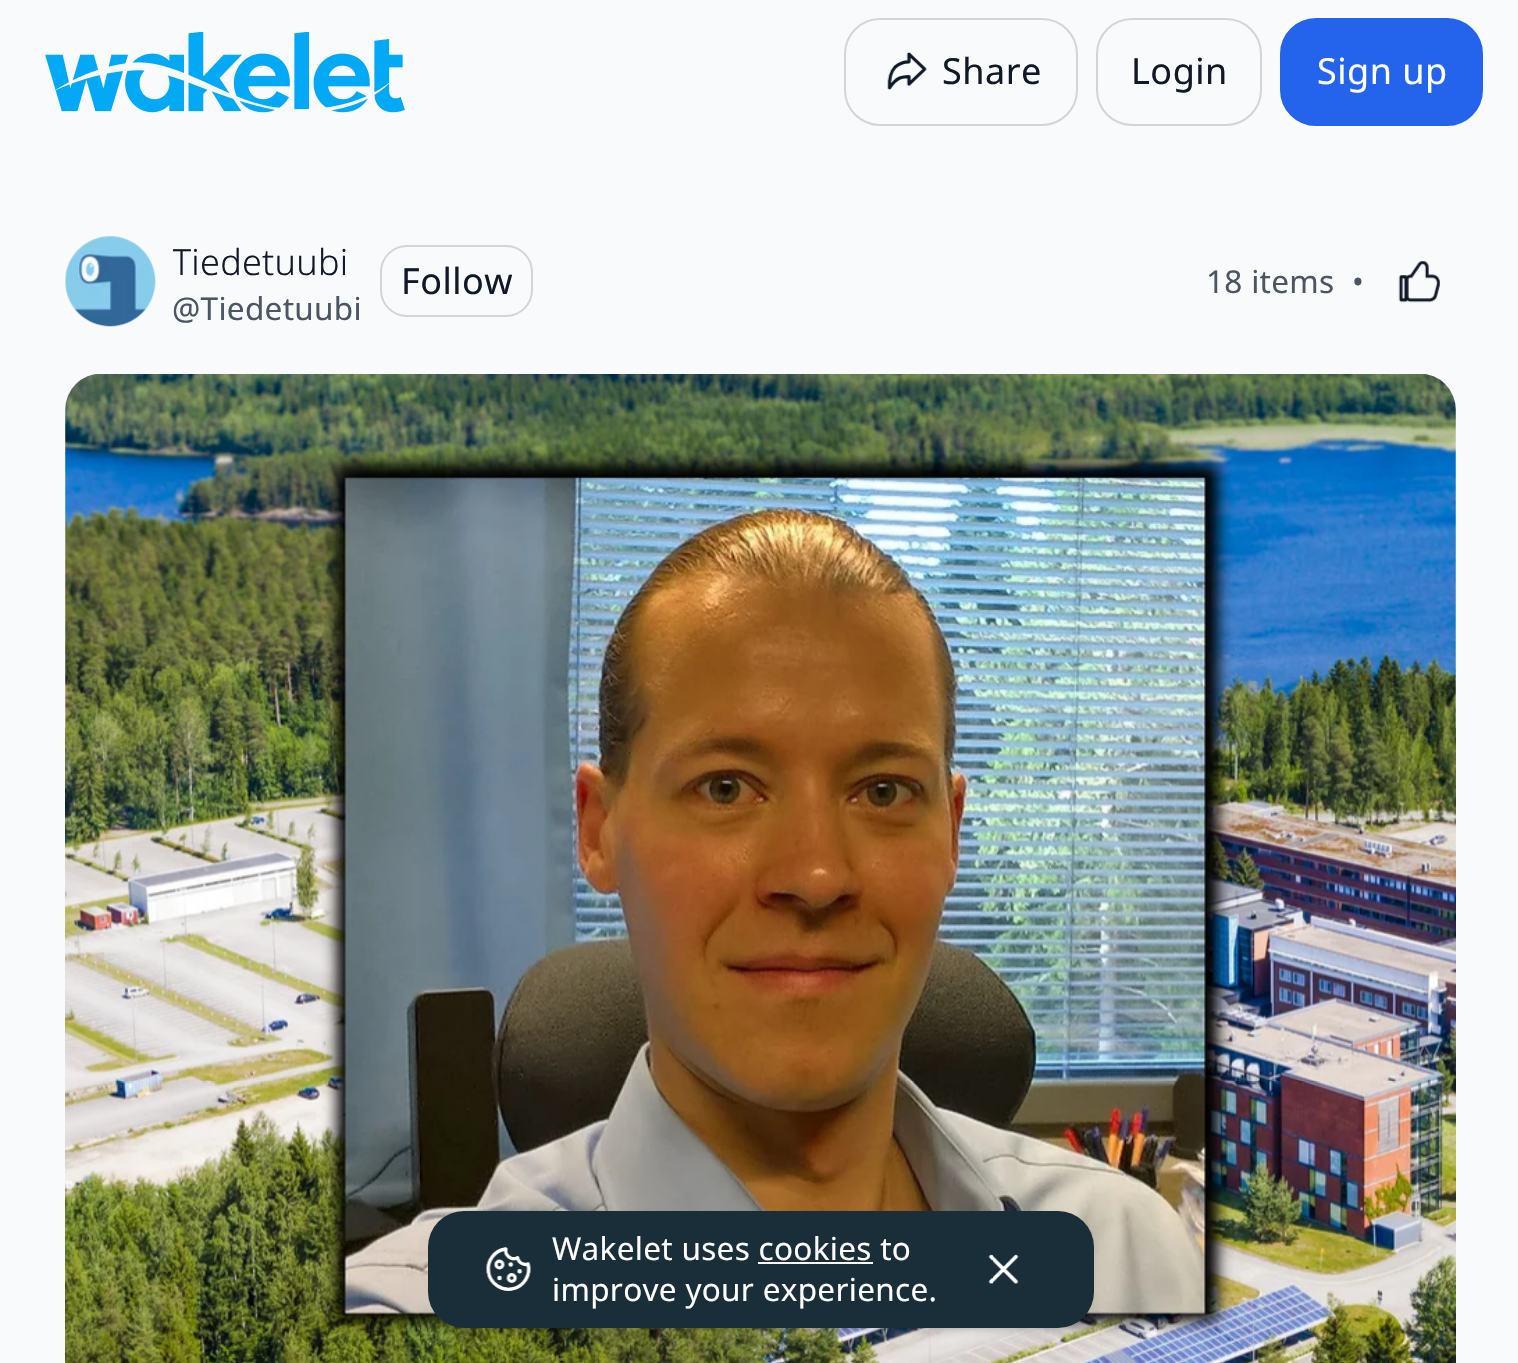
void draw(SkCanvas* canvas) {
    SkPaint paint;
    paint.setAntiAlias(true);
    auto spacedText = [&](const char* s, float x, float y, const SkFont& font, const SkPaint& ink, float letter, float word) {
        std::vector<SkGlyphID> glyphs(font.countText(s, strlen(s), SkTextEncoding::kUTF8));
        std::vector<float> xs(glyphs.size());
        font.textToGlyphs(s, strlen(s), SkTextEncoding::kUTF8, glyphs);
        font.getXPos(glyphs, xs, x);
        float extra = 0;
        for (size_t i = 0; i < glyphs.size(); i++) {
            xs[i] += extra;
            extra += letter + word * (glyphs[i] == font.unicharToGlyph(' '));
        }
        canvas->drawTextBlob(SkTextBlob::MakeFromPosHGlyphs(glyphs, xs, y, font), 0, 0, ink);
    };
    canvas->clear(0xFFF9FAFB);
    canvas->drawImageRect(SkImages::DeferredFromEncodedData(SkData::MakeFromFileName("img1.png")), SkRect::MakeXYWH(45, 32, 360, 81), SkSamplingOptions());
    paint.setStyle(SkPaint::kStroke_Style);
    paint.setStrokeWidth(2);
    paint.setColor(0xFFD1D5DB);
    canvas->drawRoundRect(SkRect::MakeXYWH(845, 19, 232, 106), 35, 35, paint);
    canvas->drawImageRect(SkImages::DeferredFromEncodedData(SkData::MakeFromFileName("img2.png")), SkRect::MakeXYWH(887, 52, 40, 38), SkSamplingOptions());
    SkFont font1(fontMgr->matchFamilyStyle("Noto Sans", SkFontStyle::Normal()), 36);
    font1.setSubpixel(true);
    paint.setStyle(SkPaint::kFill_Style);
    paint.setColor(0xFF111827);
    spacedText("Share", 942, 84, font1, paint, 0.5f, 0);
    paint.setStyle(SkPaint::kStroke_Style);
    paint.setColor(0xFFD1D5DB);
    canvas->drawRoundRect(SkRect::MakeXYWH(1097, 19, 164, 106), 35, 35, paint);
    paint.setStyle(SkPaint::kFill_Style);
    paint.setColor(0xFF111827);
    spacedText("Login", 1131, 84, font1, paint, 0.5f, 0);
    paint.setColor(0xFF2463EB);
    canvas->drawRoundRect(SkRect::MakeXYWH(1281, 19, 201, 106), 35, 35, paint);
    paint.setStyle(SkPaint::kStroke_Style);
    canvas->drawRoundRect(SkRect::MakeXYWH(1281, 19, 201, 106), 35, 35, paint);
    paint.setStyle(SkPaint::kFill_Style);
    paint.setColor(0xFFFFFFFF);
    spacedText("Sign up", 1317, 84, font1, paint, 0.5f, 0);
    canvas->drawImageRect(SkImages::DeferredFromEncodedData(SkData::MakeFromFileName("img3.png")), SkRect::MakeXYWH(65, 236, 91, 91), SkSamplingOptions());
    canvas->save();
    canvas->clipRect(SkRect::MakeXYWH(173, 234, 189, 54));
    SkFont font2(fontMgr->matchFamilyStyle("Noto Sans", SkFontStyle(300, SkFontStyle::kNormal_Width, SkFontStyle::kUpright_Slant)), 36);
    font2.setSubpixel(true);
    paint.setColor(0xFF111827);
    spacedText("Tiedetuubi", 172, 275, font2, paint, 0.25f, 0);
    canvas->restore();
    SkFont font3(fontMgr->matchFamilyStyle("Noto Sans", SkFontStyle::Normal()), 31.5f);
    font3.setSubpixel(true);
    paint.setColor(0xFF4B5563);
    spacedText("@Tiedetuubi", 172, 320, font3, paint, 0.3f, 0);
    paint.setStyle(SkPaint::kStroke_Style);
    paint.setColor(0xFFD1D5DB);
    canvas->drawRoundRect(SkRect::MakeXYWH(381, 246, 151, 70), 26, 26, paint);
    paint.setStyle(SkPaint::kFill_Style);
    paint.setColor(0xFF111827);
    spacedText("Follow", 401, 294, font1, paint, 0.5f, 0);
    paint.setColor(0xFF4B5563);
    spacedText("18 items", 1206, 293, font3, paint, 0.3f, 0);
    spacedText("•", 1352, 293, font3, paint, 0.3f, 0);
    canvas->drawImageRect(SkImages::DeferredFromEncodedData(SkData::MakeFromFileName("img4.png")), SkRect::MakeXYWH(1398, 261, 42, 42), SkSamplingOptions());
    canvas->drawImageRect(SkImages::DeferredFromEncodedData(SkData::MakeFromFileName("img5.png")), SkRect::MakeXYWH(65, 374, 1391, 989), SkSamplingOptions());
    paint.setColor(0xFF192E38);
    canvas->drawRoundRect(SkRect::MakeXYWH(428, 1211, 666, 117), 36, 36, paint);
    canvas->drawImageRect(SkImages::DeferredFromEncodedData(SkData::MakeFromFileName("img6.png")), SkRect::MakeXYWH(486, 1247, 45, 44), SkSamplingOptions());
    paint.setColor(0xFFFFFFFF);
    spacedText("Wakelet uses cookies to", 552, 1260, font3, paint, 0.3f, 0);
    canvas->drawRect(SkRect::MakeXYWH(758, 1262, 115, 2), paint);
    spacedText("improve your experience.", 552, 1301, font3, paint, 0.3f, 0);
    canvas->drawImageRect(SkImages::DeferredFromEncodedData(SkData::MakeFromFileName("img7.png")), SkRect::MakeXYWH(988, 1254, 31, 30), SkSamplingOptions());
}
